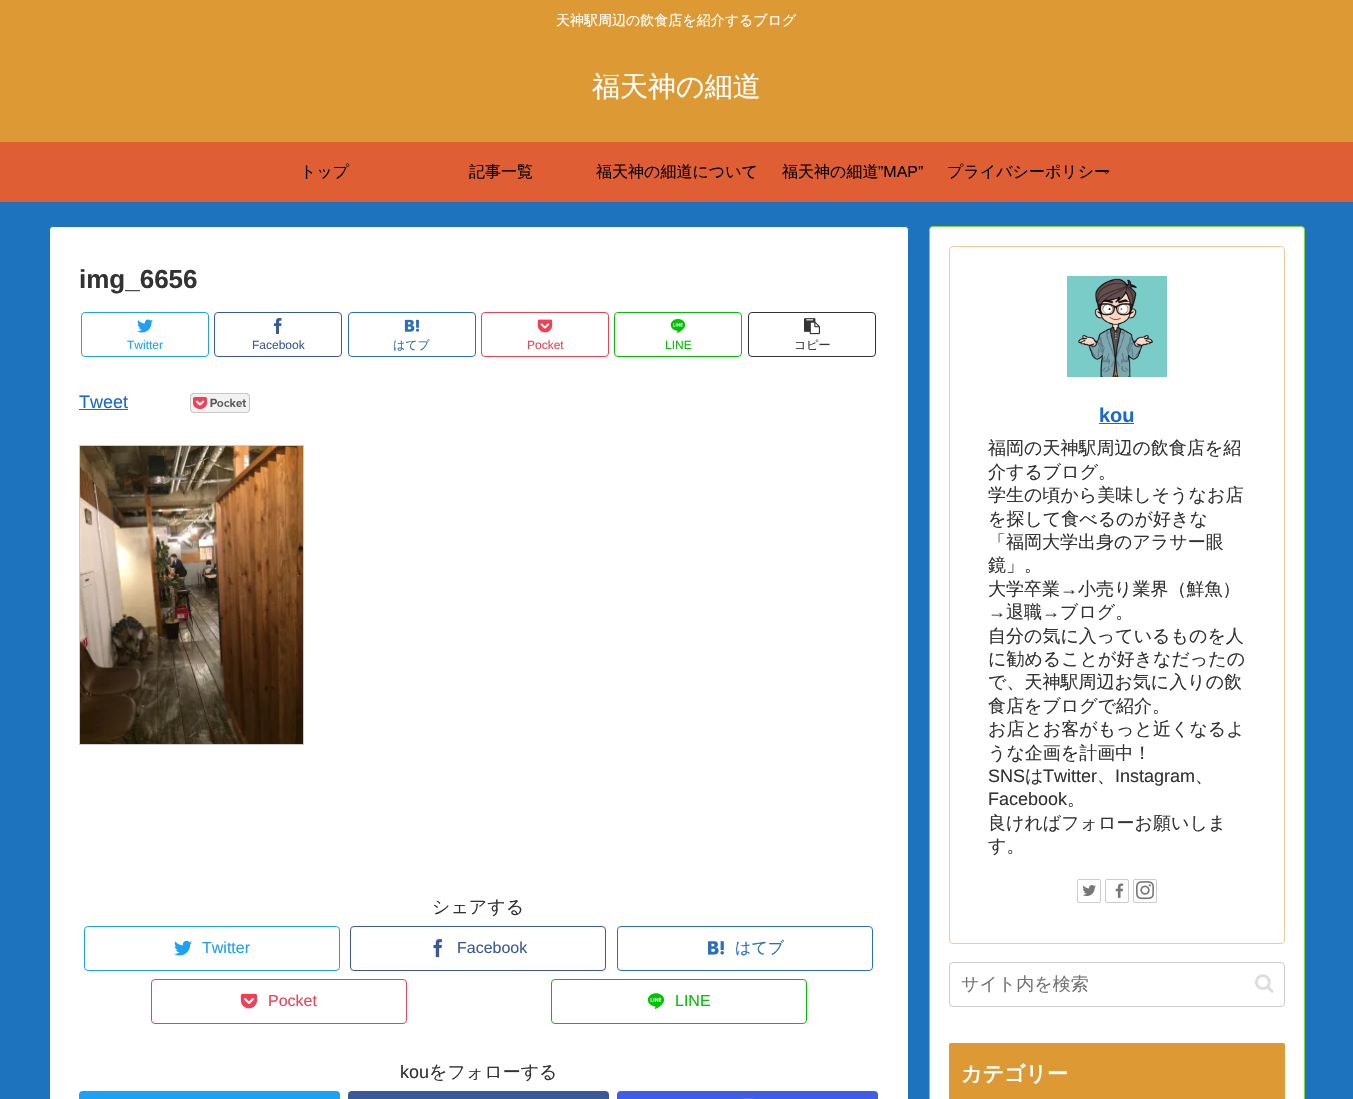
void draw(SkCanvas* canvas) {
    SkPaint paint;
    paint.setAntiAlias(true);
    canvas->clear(0xFF1E73BE);
    paint.setColor(0xFFDD9933);
    canvas->drawRect(SkRect::MakeXYWH(0, 0, 1353, 142), paint);
    SkFont font1(fontMgr->matchFamilyStyle("WenQuanYi Zen Hei", SkFontStyle(500, SkFontStyle::kNormal_Width, SkFontStyle::kUpright_Slant)), 14);
    font1.setSubpixel(true);
    paint.setColor(0xFFFFFFFF);
    canvas->drawString("天神駅周辺の飲食店を紹介するブログ", 556, 25, font1, paint);
    SkFont font2(fontMgr->matchFamilyStyle("WenQuanYi Zen Hei", SkFontStyle(500, SkFontStyle::kNormal_Width, SkFontStyle::kUpright_Slant)), 28);
    font2.setSubpixel(true);
    canvas->drawString("福天神の細道", 592, 96, font2, paint);
    paint.setColor(0xFFE05E33);
    canvas->drawRect(SkRect::MakeXYWH(0, 142, 1353, 60), paint);
    SkFont font3(fontMgr->matchFamilyStyle("WenQuanYi Zen Hei", SkFontStyle(500, SkFontStyle::kNormal_Width, SkFontStyle::kUpright_Slant)), 16);
    font3.setSubpixel(true);
    paint.setColor(0xFF000000);
    canvas->drawString("トップ", 300, 177, font3, paint);
    canvas->drawString("記事一覧", 469, 177, font3, paint);
    canvas->drawString("福天神の細道について", 596, 177, font3, paint);
    canvas->drawString("福天神の細道", 782, 177, font3, paint);
    SkFont font4(fontMgr->matchFamilyStyle("Liberation Sans", SkFontStyle::Normal()), 16);
    font4.setSubpixel(true);
    canvas->drawString("”MAP”", 878, 177, font4, paint);
    canvas->drawString("プライバシーポリシー", 947, 177, font3, paint);
    canvas->drawImageRect(SkImages::DeferredFromEncodedData(SkData::MakeFromFileName("img1.png")), SkRect::MakeXYWH(1103, 170, 7, 5), SkSamplingOptions());
    paint.setColor(0xFFFFFFFF);
    canvas->drawRoundRect(SkRect::MakeXYWH(49.5f, 226.5f, 859, 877), 3.5f, 3.5f, paint);
    paint.setStyle(SkPaint::kStroke_Style);
    paint.setStrokeWidth(1);
    paint.setColor(0xFF1E73BE);
    canvas->drawRoundRect(SkRect::MakeXYWH(49.5f, 226.5f, 859, 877), 3.5f, 3.5f, paint);
    SkFont font5(fontMgr->matchFamilyStyle("Liberation Sans", SkFontStyle::Bold()), 26);
    font5.setSubpixel(true);
    paint.setStyle(SkPaint::kFill_Style);
    paint.setColor(0xFF333333);
    canvas->drawString("img_6656", 79, 288, font5, paint);
    paint.setStyle(SkPaint::kStroke_Style);
    paint.setColor(0xFF1DA1F2);
    canvas->drawRoundRect(SkRect::MakeXYWH(81.5f, 312.5f, 127, 44), 3.5f, 3.5f, paint);
    canvas->drawImageRect(SkImages::DeferredFromEncodedData(SkData::MakeFromFileName("img2.png")), SkRect::MakeXYWH(137, 319, 16, 14), SkSamplingOptions());
    SkFont font6(fontMgr->matchFamilyStyle("Liberation Sans", SkFontStyle::Normal()), 12);
    font6.setSubpixel(true);
    paint.setStyle(SkPaint::kFill_Style);
    canvas->drawString("Twitter", 127, 349, font6, paint);
    paint.setStyle(SkPaint::kStroke_Style);
    paint.setColor(0xFF3B5998);
    canvas->drawRoundRect(SkRect::MakeXYWH(214.5f, 312.5f, 127, 44), 3.5f, 3.5f, paint);
    canvas->drawImageRect(SkImages::DeferredFromEncodedData(SkData::MakeFromFileName("img3.png")), SkRect::MakeXYWH(274, 318, 8, 16), SkSamplingOptions());
    paint.setStyle(SkPaint::kFill_Style);
    canvas->drawString("Facebook", 252, 349, font6, paint);
    paint.setStyle(SkPaint::kStroke_Style);
    paint.setColor(0xFF2C6EBD);
    canvas->drawRoundRect(SkRect::MakeXYWH(348.5f, 312.5f, 127, 44), 3.5f, 3.5f, paint);
    canvas->drawImageRect(SkImages::DeferredFromEncodedData(SkData::MakeFromFileName("img4.png")), SkRect::MakeXYWH(404, 319, 16, 13), SkSamplingOptions());
    SkFont font7(fontMgr->matchFamilyStyle("WenQuanYi Zen Hei", SkFontStyle(500, SkFontStyle::kNormal_Width, SkFontStyle::kUpright_Slant)), 12);
    font7.setSubpixel(true);
    paint.setStyle(SkPaint::kFill_Style);
    canvas->drawString("はてブ", 393, 349, font7, paint);
    paint.setStyle(SkPaint::kStroke_Style);
    paint.setColor(0xFFEF4056);
    canvas->drawRoundRect(SkRect::MakeXYWH(481.5f, 312.5f, 127, 44), 3.5f, 3.5f, paint);
    canvas->drawImageRect(SkImages::DeferredFromEncodedData(SkData::MakeFromFileName("img5.png")), SkRect::MakeXYWH(537, 319, 16, 14), SkSamplingOptions());
    paint.setStyle(SkPaint::kFill_Style);
    canvas->drawString("Pocket", 527, 349, font6, paint);
    paint.setStyle(SkPaint::kStroke_Style);
    paint.setColor(0xFF00C300);
    canvas->drawRoundRect(SkRect::MakeXYWH(614.5f, 312.5f, 127, 44), 3.5f, 3.5f, paint);
    canvas->drawImageRect(SkImages::DeferredFromEncodedData(SkData::MakeFromFileName("img6.png")), SkRect::MakeXYWH(670, 319, 16, 14), SkSamplingOptions());
    paint.setStyle(SkPaint::kFill_Style);
    canvas->drawString("LINE", 665, 349, font6, paint);
    paint.setStyle(SkPaint::kStroke_Style);
    paint.setColor(0xFF333333);
    canvas->drawRoundRect(SkRect::MakeXYWH(748.5f, 312.5f, 127, 44), 3.5f, 3.5f, paint);
    canvas->drawImageRect(SkImages::DeferredFromEncodedData(SkData::MakeFromFileName("img7.png")), SkRect::MakeXYWH(804, 318, 16, 17), SkSamplingOptions());
    paint.setStyle(SkPaint::kFill_Style);
    canvas->drawString("コピー", 794, 349, font7, paint);
    SkFont font8(fontMgr->matchFamilyStyle("Liberation Sans", SkFontStyle::Normal()), 18);
    font8.setSubpixel(true);
    paint.setColor(0xFF1967D2);
    canvas->drawString("Tweet", 79, 408, font8, paint);
    canvas->drawRect(SkRect::MakeXYWH(79, 409, 49, 1), paint);
    canvas->drawImageRect(SkImages::DeferredFromEncodedData(SkData::MakeFromFileName("img8.png")), SkRect::MakeXYWH(190, 393, 60, 20), SkSamplingOptions());
    paint.setStyle(SkPaint::kStroke_Style);
    paint.setColor(0xFFCCCCCC);
    canvas->drawRect(SkRect::MakeXYWH(79.5f, 445.5f, 224, 299), paint);
    canvas->drawImageRect(SkImages::DeferredFromEncodedData(SkData::MakeFromFileName("img9.png")), SkRect::MakeXYWH(80, 446, 223, 298), SkSamplingOptions());
    SkFont font9(fontMgr->matchFamilyStyle("WenQuanYi Zen Hei", SkFontStyle(500, SkFontStyle::kNormal_Width, SkFontStyle::kUpright_Slant)), 18);
    font9.setSubpixel(true);
    paint.setStyle(SkPaint::kFill_Style);
    paint.setColor(0xFF333333);
    canvas->drawString("シェアする", 432, 913, font9, paint);
    paint.setStyle(SkPaint::kStroke_Style);
    paint.setColor(0xFF1DA1F2);
    canvas->drawRoundRect(SkRect::MakeXYWH(84.5f, 926.5f, 255, 44), 3.5f, 3.5f, paint);
    canvas->drawImageRect(SkImages::DeferredFromEncodedData(SkData::MakeFromFileName("img10.png")), SkRect::MakeXYWH(174, 940, 18, 16), SkSamplingOptions());
    paint.setStyle(SkPaint::kFill_Style);
    canvas->drawString("Twitter", 202, 953, font4, paint);
    paint.setStyle(SkPaint::kStroke_Style);
    paint.setColor(0xFF3B5998);
    canvas->drawRoundRect(SkRect::MakeXYWH(350.5f, 926.5f, 255, 44), 3.5f, 3.5f, paint);
    canvas->drawImageRect(SkImages::DeferredFromEncodedData(SkData::MakeFromFileName("img11.png")), SkRect::MakeXYWH(433, 939, 9, 19), SkSamplingOptions());
    paint.setStyle(SkPaint::kFill_Style);
    canvas->drawString("Facebook", 457, 953, font4, paint);
    paint.setStyle(SkPaint::kStroke_Style);
    paint.setColor(0xFF2C6EBD);
    canvas->drawRoundRect(SkRect::MakeXYWH(617.5f, 926.5f, 255, 44), 3.5f, 3.5f, paint);
    canvas->drawImageRect(SkImages::DeferredFromEncodedData(SkData::MakeFromFileName("img12.png")), SkRect::MakeXYWH(708, 941, 16, 14), SkSamplingOptions());
    paint.setStyle(SkPaint::kFill_Style);
    canvas->drawString("はてブ", 735, 953, font3, paint);
    paint.setStyle(SkPaint::kStroke_Style);
    paint.setColor(0xFFEF4056);
    canvas->drawRoundRect(SkRect::MakeXYWH(151.5f, 979.5f, 255, 44), 3.5f, 3.5f, paint);
    canvas->drawImageRect(SkImages::DeferredFromEncodedData(SkData::MakeFromFileName("img13.png")), SkRect::MakeXYWH(240, 993, 18, 16), SkSamplingOptions());
    paint.setStyle(SkPaint::kFill_Style);
    canvas->drawString("Pocket", 268, 1006, font4, paint);
    paint.setStyle(SkPaint::kStroke_Style);
    paint.setColor(0xFF00C300);
    canvas->drawRoundRect(SkRect::MakeXYWH(551.5f, 979.5f, 255, 44), 3.5f, 3.5f, paint);
    canvas->drawImageRect(SkImages::DeferredFromEncodedData(SkData::MakeFromFileName("img14.png")), SkRect::MakeXYWH(647, 993, 18, 16), SkSamplingOptions());
    paint.setStyle(SkPaint::kFill_Style);
    canvas->drawString("LINE", 675, 1006, font4, paint);
    paint.setColor(0xFF333333);
    canvas->drawString("kou", 400, 1078, font8, paint);
    canvas->drawString("をフォローする", 429, 1078, font9, paint);
    paint.setColor(0xFF1DA1F2);
    canvas->drawRoundRect(SkRect::MakeXYWH(79, 1091, 261, 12), 4, 4, paint);
    paint.setColor(0xFF3B5998);
    canvas->drawRoundRect(SkRect::MakeXYWH(348, 1091, 261, 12), 4, 4, paint);
    paint.setColor(0xFF405DE6);
    canvas->drawRoundRect(SkRect::MakeXYWH(617, 1091, 261, 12), 4, 4, paint);
    canvas->drawImageRect(SkImages::DeferredFromEncodedData(SkData::MakeFromFileName("img15.png")), SkRect::MakeXYWH(742, 1098, 12, 1), SkSamplingOptions());
    paint.setColor(0xFFFFFFFF);
    canvas->drawRoundRect(SkRect::MakeXYWH(929.5f, 226.5f, 375, 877), 3.5f, 3.5f, paint);
    paint.setStyle(SkPaint::kStroke_Style);
    paint.setColor(0xFF81D742);
    canvas->drawRoundRect(SkRect::MakeXYWH(929.5f, 226.5f, 375, 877), 3.5f, 3.5f, paint);
    paint.setColor(0xFFEECC99);
    canvas->drawRoundRect(SkRect::MakeXYWH(949.5f, 246.5f, 335, 697), 3.5f, 3.5f, paint);
    canvas->drawImageRect(SkImages::DeferredFromEncodedData(SkData::MakeFromFileName("img16.png")), SkRect::MakeXYWH(1067, 276, 100, 101), SkSamplingOptions());
    SkFont font10(fontMgr->matchFamilyStyle("Liberation Sans", SkFontStyle::Bold()), 20);
    font10.setSubpixel(true);
    paint.setStyle(SkPaint::kFill_Style);
    paint.setColor(0xFF1967D2);
    canvas->drawString("kou", 1099, 422, font10, paint);
    canvas->drawRect(SkRect::MakeXYWH(1099, 423, 35, 1), paint);
    paint.setColor(0xFF333333);
    canvas->drawString("福岡の天神駅周辺の飲食店を紹", 988, 454, font9, paint);
    canvas->drawString("介するブログ。", 988, 478, font9, paint);
    canvas->drawString("学生の頃から美味しそうなお店", 988, 501, font9, paint);
    canvas->drawString("を探して食べるのが好きな", 988, 525, font9, paint);
    canvas->drawString("「福岡大学出身のアラサー眼", 988, 548, font9, paint);
    canvas->drawString("鏡」。", 988, 571, font9, paint);
    canvas->drawString("大学卒業", 988, 595, font9, paint);
    canvas->drawString("→", 1060, 595, font8, paint);
    canvas->drawString("小売り業界（鮮魚）", 1078, 595, font9, paint);
    canvas->drawString("→", 988, 618, font8, paint);
    canvas->drawString("退職", 1006, 618, font9, paint);
    canvas->drawString("→", 1042, 618, font8, paint);
    canvas->drawString("ブログ。", 1060, 618, font9, paint);
    canvas->drawString("自分の気に入っているものを人", 988, 642, font9, paint);
    canvas->drawString("に勧めることが好きなだったの", 988, 665, font9, paint);
    canvas->drawString("で、天神駅周辺お気に入りの飲", 988, 688, font9, paint);
    canvas->drawString("食店をブログで紹介。", 988, 712, font9, paint);
    canvas->drawString("お店とお客がもっと近くなるよ", 988, 735, font9, paint);
    canvas->drawString("うな企画を計画中！", 988, 759, font9, paint);
    canvas->drawString("SNS", 988, 782, font8, paint);
    canvas->drawString("は", 1025, 782, font9, paint);
    canvas->drawString("Twitter", 1043, 782, font8, paint);
    canvas->drawString("、", 1097, 782, font9, paint);
    canvas->drawString("Instagram", 1115, 782, font8, paint);
    canvas->drawString("、", 1195, 782, font9, paint);
    canvas->drawString("Facebook", 988, 805, font8, paint);
    canvas->drawString("。", 1067, 805, font9, paint);
    canvas->drawString("良ければフォローお願いしま", 988, 829, font9, paint);
    canvas->drawString("す。", 988, 852, font9, paint);
    paint.setStyle(SkPaint::kStroke_Style);
    paint.setColor(0xFFCCCCCC);
    canvas->drawRoundRect(SkRect::MakeXYWH(1077.5f, 879.5f, 23, 23), 1.5f, 1.5f, paint);
    canvas->drawImageRect(SkImages::DeferredFromEncodedData(SkData::MakeFromFileName("img17.png")), SkRect::MakeXYWH(1082, 885, 14, 12), SkSamplingOptions());
    canvas->drawRoundRect(SkRect::MakeXYWH(1105.5f, 879.5f, 23, 23), 1.5f, 1.5f, paint);
    canvas->drawImageRect(SkImages::DeferredFromEncodedData(SkData::MakeFromFileName("img18.png")), SkRect::MakeXYWH(1115, 883, 9, 15), SkSamplingOptions());
    canvas->drawRoundRect(SkRect::MakeXYWH(1133.5f, 879.5f, 23, 23), 1.5f, 1.5f, paint);
    canvas->drawImageRect(SkImages::DeferredFromEncodedData(SkData::MakeFromFileName("img19.png")), SkRect::MakeXYWH(1136, 881, 18, 19), SkSamplingOptions());
    canvas->drawRoundRect(SkRect::MakeXYWH(949.5f, 962.5f, 335, 44), 3.5f, 3.5f, paint);
    paint.setStyle(SkPaint::kFill_Style);
    paint.setColor(0xFF757575);
    canvas->drawString("サイト内を検索", 961, 990, font9, paint);
    canvas->drawImageRect(SkImages::DeferredFromEncodedData(SkData::MakeFromFileName("img20.png")), SkRect::MakeXYWH(1255, 974, 19, 19), SkSamplingOptions());
    paint.setColor(0xFFDD9933);
    canvas->drawRoundRect(SkRect::MakeXYWH(949, 1043, 336, 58), 2, 2, paint);
    SkFont font11(fontMgr->matchFamilyStyle("WenQuanYi Zen Hei", SkFontStyle::Bold()), 21);
    font11.setSubpixel(true);
    paint.setColor(0xFFFFFFFF);
    canvas->drawString("カテゴリー", 961, 1081, font11, paint);
}
